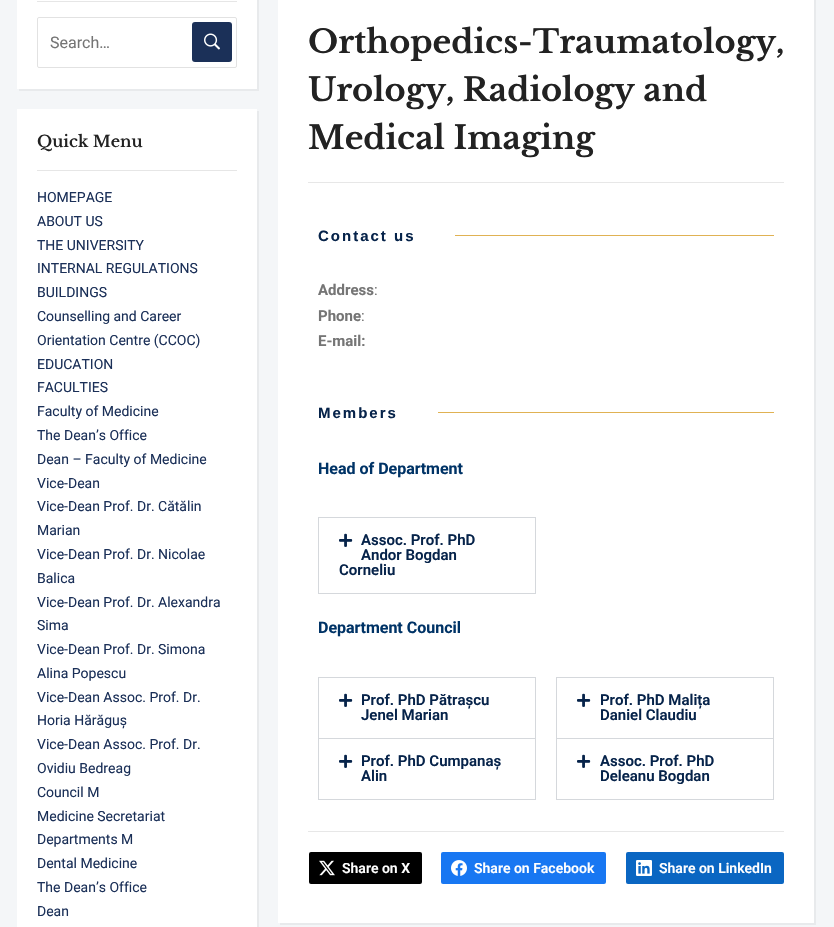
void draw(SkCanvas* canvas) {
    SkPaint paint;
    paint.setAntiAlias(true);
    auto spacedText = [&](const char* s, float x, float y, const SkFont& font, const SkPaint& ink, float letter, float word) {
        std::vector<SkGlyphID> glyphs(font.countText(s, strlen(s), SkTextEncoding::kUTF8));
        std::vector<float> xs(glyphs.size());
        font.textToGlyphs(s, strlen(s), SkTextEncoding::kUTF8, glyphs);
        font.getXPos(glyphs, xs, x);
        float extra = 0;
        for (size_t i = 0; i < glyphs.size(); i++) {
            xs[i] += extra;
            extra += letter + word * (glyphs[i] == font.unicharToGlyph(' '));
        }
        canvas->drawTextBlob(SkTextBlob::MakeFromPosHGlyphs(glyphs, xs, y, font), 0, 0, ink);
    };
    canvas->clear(0xFFF4F6F8);
    paint.setColor(0xFFE8EAEC);
    canvas->drawPath(SkPathBuilder().moveTo(19, 89).lineTo(19, 91).lineTo(259, 91).lineTo(259, -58).lineTo(257, -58).lineTo(257, 89).close().detach(), paint);
    paint.setColor(0xFFFFFFFF);
    canvas->drawRect(SkRect::MakeXYWH(17, 0, 240, 89), paint);
    paint.setColor(0xFFE6E6E6);
    canvas->drawRect(SkRect::MakeXYWH(37, 1, 200, 1), paint);
    paint.setStyle(SkPaint::kStroke_Style);
    paint.setStrokeWidth(1);
    paint.setColor(0xFFE2E2E2);
    canvas->drawRoundRect(SkRect::MakeXYWH(37.5f, 17.5f, 199, 50), 1.5f, 1.5f, paint);
    SkFont font1(fontMgr->matchFamilyStyle("Roboto", SkFontStyle::Normal()), 16);
    font1.setSubpixel(true);
    paint.setStyle(SkPaint::kFill_Style);
    paint.setColor(0xFF757575);
    canvas->drawString("Search…", 50, 48, font1, paint);
    paint.setColor(0xFF1B3058);
    canvas->drawRoundRect(SkRect::MakeXYWH(192, 22, 40, 40), 3, 3, paint);
    canvas->drawImageRect(SkImages::DeferredFromEncodedData(SkData::MakeFromFileName("img1.png")), SkRect::MakeXYWH(204, 33, 16, 17), SkSamplingOptions());
    paint.setColor(0xFFE8EAEC);
    canvas->drawPath(SkPathBuilder().moveTo(19, 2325).lineTo(19, 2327).lineTo(259, 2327).lineTo(259, 111).lineTo(257, 111).lineTo(257, 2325).close().detach(), paint);
    paint.setColor(0xFFFFFFFF);
    canvas->drawRect(SkRect::MakeXYWH(17, 109, 240, 818), paint);
    paint.setColor(0xFFE6E6E6);
    canvas->drawRect(SkRect::MakeXYWH(37, 170, 200, 1), paint);
    SkFont font2(fontMgr->matchFamilyStyle("Libre Baskerville", SkFontStyle(600, SkFontStyle::kNormal_Width, SkFontStyle::kUpright_Slant)), 16);
    font2.setSubpixel(true);
    paint.setColor(0xFF222222);
    canvas->drawString("Quick Menu", 37, 147, font2, paint);
    SkFont font3(fontMgr->matchFamilyStyle("Roboto", SkFontStyle::Normal()), 14);
    font3.setSubpixel(true);
    paint.setColor(0xFF1B3058);
    canvas->drawString("HOMEPAGE", 37, 202, font3, paint);
    canvas->drawString("ABOUT US", 37, 226, font3, paint);
    canvas->drawString("THE UNIVERSITY", 37, 250, font3, paint);
    canvas->drawString("INTERNAL REGULATIONS", 37, 273, font3, paint);
    canvas->drawString("BUILDINGS", 37, 297, font3, paint);
    canvas->drawString("Counselling and Career", 37, 321, font3, paint);
    canvas->drawString("Orientation Centre (CCOC)", 37, 345, font3, paint);
    canvas->drawString("EDUCATION", 37, 369, font3, paint);
    canvas->drawString("FACULTIES", 37, 392, font3, paint);
    canvas->drawString("Faculty of Medicine", 37, 416, font3, paint);
    canvas->drawString("The Dean’s Office", 37, 440, font3, paint);
    canvas->drawString("Dean – Faculty of Medicine", 37, 464, font3, paint);
    canvas->drawString("Vice-Dean", 37, 488, font3, paint);
    canvas->drawString("Vice-Dean Prof. Dr. Cătălin", 37, 511, font3, paint);
    canvas->drawString("Marian", 37, 535, font3, paint);
    canvas->drawString("Vice-Dean Prof. Dr. Nicolae", 37, 559, font3, paint);
    canvas->drawString("Balica", 37, 583, font3, paint);
    canvas->drawString("Vice-Dean Prof. Dr. Alexandra", 37, 607, font3, paint);
    canvas->drawString("Sima", 37, 630, font3, paint);
    canvas->drawString("Vice-Dean Prof. Dr. Simona", 37, 654, font3, paint);
    canvas->drawString("Alina Popescu", 37, 678, font3, paint);
    canvas->drawString("Vice-Dean Assoc. Prof. Dr.", 37, 702, font3, paint);
    canvas->drawString("Horia Hărăguș", 37, 725, font3, paint);
    canvas->drawString("Vice-Dean Assoc. Prof. Dr.", 37, 749, font3, paint);
    canvas->drawString("Ovidiu Bedreag", 37, 773, font3, paint);
    canvas->drawString("Council M", 37, 797, font3, paint);
    canvas->drawString("Medicine Secretariat", 37, 821, font3, paint);
    canvas->drawString("Departments M", 37, 844, font3, paint);
    canvas->drawString("Dental Medicine", 37, 868, font3, paint);
    canvas->drawString("The Dean’s Office", 37, 892, font3, paint);
    canvas->drawString("Dean", 37, 916, font3, paint);
    paint.setColor(0xFFE8EAEC);
    canvas->drawPath(SkPathBuilder().moveTo(280, 923).lineTo(280, 925).lineTo(816, 925).lineTo(816, -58).lineTo(814, -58).lineTo(814, 923).close().detach(), paint);
    paint.setColor(0xFFFFFFFF);
    canvas->drawRect(SkRect::MakeXYWH(278, 0, 536, 923), paint);
    SkFont font4(fontMgr->matchFamilyStyle("Libre Baskerville", SkFontStyle::Bold()), 32);
    font4.setSubpixel(true);
    paint.setColor(0xFF222222);
    canvas->drawString("Orthopedics-Traumatology,", 308, 53, font4, paint);
    canvas->drawString("Urology, Radiology and", 308, 101, font4, paint);
    canvas->drawString("Medical Imaging", 308, 149, font4, paint);
    paint.setColor(0xFFE7E7E7);
    canvas->drawRect(SkRect::MakeXYWH(308, 182, 476, 1), paint);
    SkFont font5(fontMgr->matchFamilyStyle("Liberation Sans", SkFontStyle::Bold()), 15);
    font5.setSubpixel(true);
    paint.setColor(0xFF06234A);
    spacedText("Contact us", 318, 241, font5, paint, 2, 0);
    paint.setColor(0xFFE0B253);
    canvas->drawRect(SkRect::MakeXYWH(455, 235, 319, 1), paint);
    SkFont font6(fontMgr->matchFamilyStyle("Roboto", SkFontStyle::Bold()), 15);
    font6.setSubpixel(true);
    paint.setColor(0xFF757575);
    canvas->drawString("Address", 318, 295, font6, paint);
    SkFont font7(fontMgr->matchFamilyStyle("Roboto", SkFontStyle::Normal()), 15);
    font7.setSubpixel(true);
    canvas->drawString(":", 374, 295, font7, paint);
    canvas->drawString("Phone", 318, 321, font6, paint);
    canvas->drawString(":", 361, 321, font7, paint);
    canvas->drawString("E-mail:", 318, 346, font6, paint);
    paint.setColor(0xFF06234A);
    spacedText("Members", 318, 418, font5, paint, 2, 0);
    paint.setColor(0xFFE0B253);
    canvas->drawRect(SkRect::MakeXYWH(438, 412, 336, 1), paint);
    SkFont font8(fontMgr->matchFamilyStyle("Roboto", SkFontStyle::Bold()), 16);
    font8.setSubpixel(true);
    paint.setColor(0xFF003366);
    canvas->drawString("Head of Department", 318, 474, font8, paint);
    paint.setStyle(SkPaint::kStroke_Style);
    paint.setColor(0xFFD5D8DC);
    canvas->drawRect(SkRect::MakeXYWH(318.5f, 517.5f, 217, 76), paint);
    canvas->drawImageRect(SkImages::DeferredFromEncodedData(SkData::MakeFromFileName("img2.png")), SkRect::MakeXYWH(339, 533, 14, 14), SkSamplingOptions());
    SkFont font9(fontMgr->matchFamilyStyle("Roboto", SkFontStyle(600, SkFontStyle::kNormal_Width, SkFontStyle::kUpright_Slant)), 15);
    font9.setSubpixel(true);
    paint.setStyle(SkPaint::kFill_Style);
    paint.setColor(0xFF06234A);
    canvas->drawString("Assoc. Prof. PhD", 361, 545, font9, paint);
    canvas->drawString("Andor Bogdan", 361, 560, font9, paint);
    canvas->drawString("Corneliu", 339, 575, font9, paint);
    paint.setColor(0xFF003366);
    canvas->drawString("Department Council", 318, 633, font8, paint);
    paint.setStyle(SkPaint::kStroke_Style);
    paint.setColor(0xFFD5D8DC);
    canvas->drawRect(SkRect::MakeXYWH(318.5f, 677.5f, 217, 61), paint);
    canvas->drawImageRect(SkImages::DeferredFromEncodedData(SkData::MakeFromFileName("img2.png")), SkRect::MakeXYWH(339, 693, 14, 14), SkSamplingOptions());
    paint.setStyle(SkPaint::kFill_Style);
    paint.setColor(0xFF06234A);
    canvas->drawString("Prof. PhD Pătrașcu", 361, 705, font9, paint);
    canvas->drawString("Jenel Marian", 361, 720, font9, paint);
    paint.setColor(0xFFD5D8DC);
    canvas->drawRect(SkRect::MakeXYWH(535, 739, 1, 61), paint);
    canvas->drawRect(SkRect::MakeXYWH(318, 799, 218, 1), paint);
    canvas->drawRect(SkRect::MakeXYWH(318, 739, 1, 61), paint);
    canvas->drawImageRect(SkImages::DeferredFromEncodedData(SkData::MakeFromFileName("img2.png")), SkRect::MakeXYWH(339, 754, 14, 14), SkSamplingOptions());
    paint.setColor(0xFF06234A);
    canvas->drawString("Prof. PhD Cumpanaș", 361, 766, font9, paint);
    canvas->drawString("Alin", 361, 781, font9, paint);
    paint.setStyle(SkPaint::kStroke_Style);
    paint.setColor(0xFFD5D8DC);
    canvas->drawRect(SkRect::MakeXYWH(556.5f, 677.5f, 217, 61), paint);
    canvas->drawImageRect(SkImages::DeferredFromEncodedData(SkData::MakeFromFileName("img2.png")), SkRect::MakeXYWH(577, 693, 14, 14), SkSamplingOptions());
    paint.setStyle(SkPaint::kFill_Style);
    paint.setColor(0xFF06234A);
    canvas->drawString("Prof. PhD Malița", 600, 705, font9, paint);
    canvas->drawString("Daniel Claudiu", 600, 720, font9, paint);
    paint.setColor(0xFFD5D8DC);
    canvas->drawRect(SkRect::MakeXYWH(773, 739, 1, 61), paint);
    canvas->drawRect(SkRect::MakeXYWH(556, 799, 218, 1), paint);
    canvas->drawRect(SkRect::MakeXYWH(556, 739, 1, 61), paint);
    canvas->drawImageRect(SkImages::DeferredFromEncodedData(SkData::MakeFromFileName("img2.png")), SkRect::MakeXYWH(577, 754, 14, 14), SkSamplingOptions());
    paint.setColor(0xFF06234A);
    canvas->drawString("Assoc. Prof. PhD", 600, 766, font9, paint);
    canvas->drawString("Deleanu Bogdan", 600, 781, font9, paint);
    paint.setColor(0xFFE7E7E7);
    canvas->drawRect(SkRect::MakeXYWH(308, 831, 476, 1), paint);
    paint.setColor(0xFF000000);
    canvas->drawRoundRect(SkRect::MakeXYWH(309, 852, 113, 32), 2, 2, paint);
    canvas->drawImageRect(SkImages::DeferredFromEncodedData(SkData::MakeFromFileName("img3.png")), SkRect::MakeXYWH(319, 860, 16, 16), SkSamplingOptions());
    SkFont font10(fontMgr->matchFamilyStyle("Roboto", SkFontStyle(600, SkFontStyle::kNormal_Width, SkFontStyle::kUpright_Slant)), 14);
    font10.setSubpixel(true);
    paint.setColor(0xFFFFFFFF);
    canvas->drawString("Share on X", 342, 873, font10, paint);
    paint.setColor(0xFF1877F2);
    canvas->drawRoundRect(SkRect::MakeXYWH(441, 852, 165, 32), 2, 2, paint);
    canvas->drawImageRect(SkImages::DeferredFromEncodedData(SkData::MakeFromFileName("img4.png")), SkRect::MakeXYWH(451, 860, 16, 16), SkSamplingOptions());
    paint.setColor(0xFFFFFFFF);
    canvas->drawString("Share on Facebook", 474, 873, font10, paint);
    paint.setColor(0xFF0A66C2);
    canvas->drawRoundRect(SkRect::MakeXYWH(626, 852, 158, 32), 2, 2, paint);
    canvas->drawImageRect(SkImages::DeferredFromEncodedData(SkData::MakeFromFileName("img5.png")), SkRect::MakeXYWH(636, 860, 16, 16), SkSamplingOptions());
    paint.setColor(0xFFFFFFFF);
    canvas->drawString("Share on LinkedIn", 659, 873, font10, paint);
}
